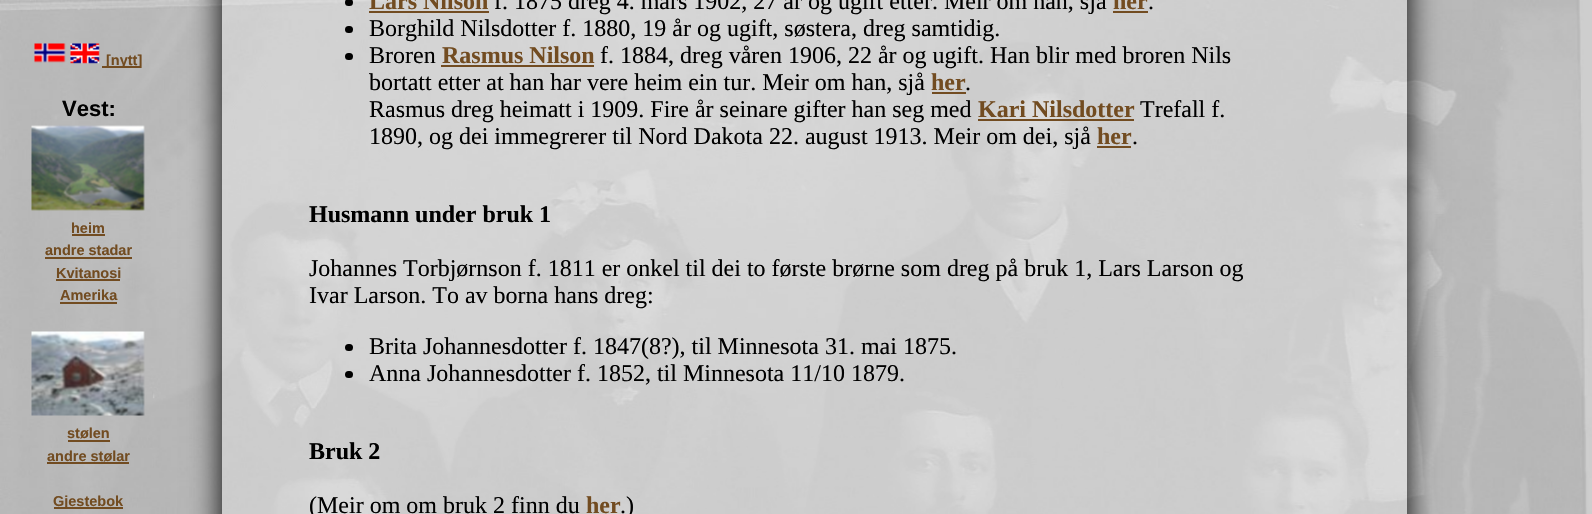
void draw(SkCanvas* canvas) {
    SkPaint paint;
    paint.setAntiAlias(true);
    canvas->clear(0xFFFFFFFF);
    canvas->drawImageRect(SkImages::DeferredFromEncodedData(SkData::MakeFromFileName("img1.png")), SkRect::MakeXYWH(0, 0, 1592, 514), SkSamplingOptions());
    canvas->drawImageRect(SkImages::DeferredFromEncodedData(SkData::MakeFromFileName("img2.png")), SkRect::MakeXYWH(34, 43, 32, 20), SkSamplingOptions());
    canvas->drawImageRect(SkImages::DeferredFromEncodedData(SkData::MakeFromFileName("img3.png")), SkRect::MakeXYWH(70, 43, 30, 21), SkSamplingOptions());
    paint.setColor(0xFF724C21);
    canvas->drawRect(SkRect::MakeXYWH(102, 66, 39, 2), paint);
    SkFont font1(fontMgr->matchFamilyStyle("Liberation Sans", SkFontStyle::Bold()), 14.5f);
    font1.setSubpixel(true);
    canvas->drawString("[nytt]", 106, 65, font1, paint);
    SkFont font2(fontMgr->matchFamilyStyle("Liberation Sans", SkFontStyle::Bold()), 22);
    font2.setSubpixel(true);
    paint.setColor(0xFF000000);
    canvas->drawString("Vest:", 62, 116, font2, paint);
    canvas->drawImageRect(SkImages::DeferredFromEncodedData(SkData::MakeFromFileName("img4.png")), SkRect::MakeXYWH(31, 125, 114, 86), SkSamplingOptions());
    paint.setColor(0xFF724C21);
    canvas->drawString("heim", 71, 233, font1, paint);
    canvas->drawRect(SkRect::MakeXYWH(72, 234, 33, 2), paint);
    canvas->drawString("andre stadar", 45, 255, font1, paint);
    canvas->drawRect(SkRect::MakeXYWH(45, 257, 87, 2), paint);
    canvas->drawString("Kvitanosi", 56, 278, font1, paint);
    canvas->drawRect(SkRect::MakeXYWH(56, 279, 64, 2), paint);
    canvas->drawString("Amerika", 60, 300, font1, paint);
    canvas->drawRect(SkRect::MakeXYWH(60, 302, 57, 2), paint);
    canvas->drawImageRect(SkImages::DeferredFromEncodedData(SkData::MakeFromFileName("img5.png")), SkRect::MakeXYWH(31, 331, 114, 85), SkSamplingOptions());
    canvas->drawString("stølen", 67, 438, font1, paint);
    canvas->drawRect(SkRect::MakeXYWH(68, 440, 42, 2), paint);
    canvas->drawString("andre stølar", 47, 461, font1, paint);
    canvas->drawRect(SkRect::MakeXYWH(47, 462, 82, 2), paint);
    canvas->drawRect(SkRect::MakeXYWH(54, 507, 69, 2), paint);
    canvas->drawString("Gjestebok", 53, 506, font1, paint);
    canvas->save();
    canvas->clipPath(SkPathBuilder(SkPathFillType::kEvenOdd).moveTo(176, 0).lineTo(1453, 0).lineTo(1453, 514).lineTo(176, 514).close().moveTo(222, -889).lineTo(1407, -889).lineTo(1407, 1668).lineTo(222, 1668).close().detach(), true);
    paint.setColor(0xFF000000);
    paint.setMaskFilter(SkMaskFilter::MakeBlur(kNormal_SkBlurStyle, 15));
    canvas->drawRect(SkRect::MakeXYWH(222, -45, 1185, 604), paint);
    paint.setMaskFilter(nullptr);
    canvas->restore();
    paint.setColor(0x4DFFFFFF);
    canvas->drawRect(SkRect::MakeXYWH(222, 0, 1185, 514), paint);
    paint.setColor(0xFF000000);
    canvas->drawRoundRect(SkRect::MakeXYWH(345, -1, 8, 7), 3.5f, 3.5f, paint);
    SkFont font3(fontMgr->matchFamilyStyle("Liberation Serif", SkFontStyle::Bold()), 24);
    font3.setSubpixel(true);
    paint.setColor(0xFF724C21);
    canvas->drawString("Lars Nilson", 369, 9, font3, paint);
    canvas->drawRect(SkRect::MakeXYWH(369, 11, 120, 2), paint);
    SkFont font4(fontMgr->matchFamilyStyle("Liberation Serif", SkFontStyle::Normal()), 24);
    font4.setSubpixel(true);
    paint.setColor(0xFF000000);
    canvas->drawString("f. 1875 dreg 4. mars 1902, 27 år og ugift etter. Meir om han, sjå", 494, 9, font4, paint);
    paint.setColor(0xFF724C21);
    canvas->drawString("her", 1113, 9, font3, paint);
    canvas->drawRect(SkRect::MakeXYWH(1113, 11, 35, 2), paint);
    paint.setColor(0xFF000000);
    canvas->drawString(".", 1148, 9, font4, paint);
    canvas->drawRoundRect(SkRect::MakeXYWH(345, 26, 8, 7), 3.5f, 3.5f, paint);
    canvas->drawString("Borghild Nilsdotter f. 1880, 19 år og ugift, søstera, dreg samtidig.", 369, 36, font4, paint);
    canvas->drawRoundRect(SkRect::MakeXYWH(345, 53, 8, 7), 3.5f, 3.5f, paint);
    canvas->drawString("Broren", 369, 63, font4, paint);
    paint.setColor(0xFF724C21);
    canvas->drawString("Rasmus Nilson", 442, 63, font3, paint);
    canvas->drawRect(SkRect::MakeXYWH(441, 65, 153, 2), paint);
    paint.setColor(0xFF000000);
    canvas->drawString("f. 1884, dreg våren 1906, 22 år og ugift. Han blir med broren Nils", 600, 63, font4, paint);
    canvas->drawString("bortatt etter at han har vere heim ein tur. Meir om han, sjå", 369, 90, font4, paint);
    paint.setColor(0xFF724C21);
    canvas->drawString("her", 931, 90, font3, paint);
    canvas->drawRect(SkRect::MakeXYWH(932, 92, 34, 2), paint);
    paint.setColor(0xFF000000);
    canvas->drawString(".", 965, 90, font4, paint);
    canvas->drawString("Rasmus dreg heimatt i 1909. Fire år seinare gifter han seg med", 369, 117, font4, paint);
    paint.setColor(0xFF724C21);
    canvas->drawString("Kari Nilsdotter", 978, 117, font3, paint);
    canvas->drawRect(SkRect::MakeXYWH(978, 119, 156, 2), paint);
    paint.setColor(0xFF000000);
    canvas->drawString("Trefall f.", 1140, 117, font4, paint);
    canvas->drawString("1890, og dei immegrerer til Nord Dakota 22. august 1913. Meir om dei, sjå", 369, 144, font4, paint);
    paint.setColor(0xFF724C21);
    canvas->drawString("her", 1097, 144, font3, paint);
    canvas->drawRect(SkRect::MakeXYWH(1097, 146, 34, 2), paint);
    paint.setColor(0xFF000000);
    canvas->drawString(".", 1132, 144, font4, paint);
    canvas->drawString("Husmann under bruk 1", 309, 222, font3, paint);
    canvas->drawString("Johannes Torbjørnson f. 1811 er onkel til dei to første brørne som dreg på bruk 1, Lars Larson og", 309, 276, font4, paint);
    canvas->drawString("Ivar Larson. To av borna hans dreg:", 309, 303, font4, paint);
    canvas->drawRoundRect(SkRect::MakeXYWH(345, 344, 8, 7), 3.5f, 3.5f, paint);
    canvas->drawString("Brita Johannesdotter f. 1847(8?), til Minnesota 31. mai 1875.", 369, 354, font4, paint);
    canvas->drawRoundRect(SkRect::MakeXYWH(345, 371, 8, 7), 3.5f, 3.5f, paint);
    canvas->drawString("Anna Johannesdotter f. 1852, til Minnesota 11/10 1879.", 369, 381, font4, paint);
    canvas->drawString("Bruk 2", 309, 459, font3, paint);
    canvas->drawString("(Meir om om bruk 2 finn du", 309, 513, font4, paint);
    paint.setColor(0xFF724C21);
    canvas->drawString("her", 586, 513, font3, paint);
    paint.setColor(0xFF000000);
    canvas->drawString(".)", 620, 513, font4, paint);
}
